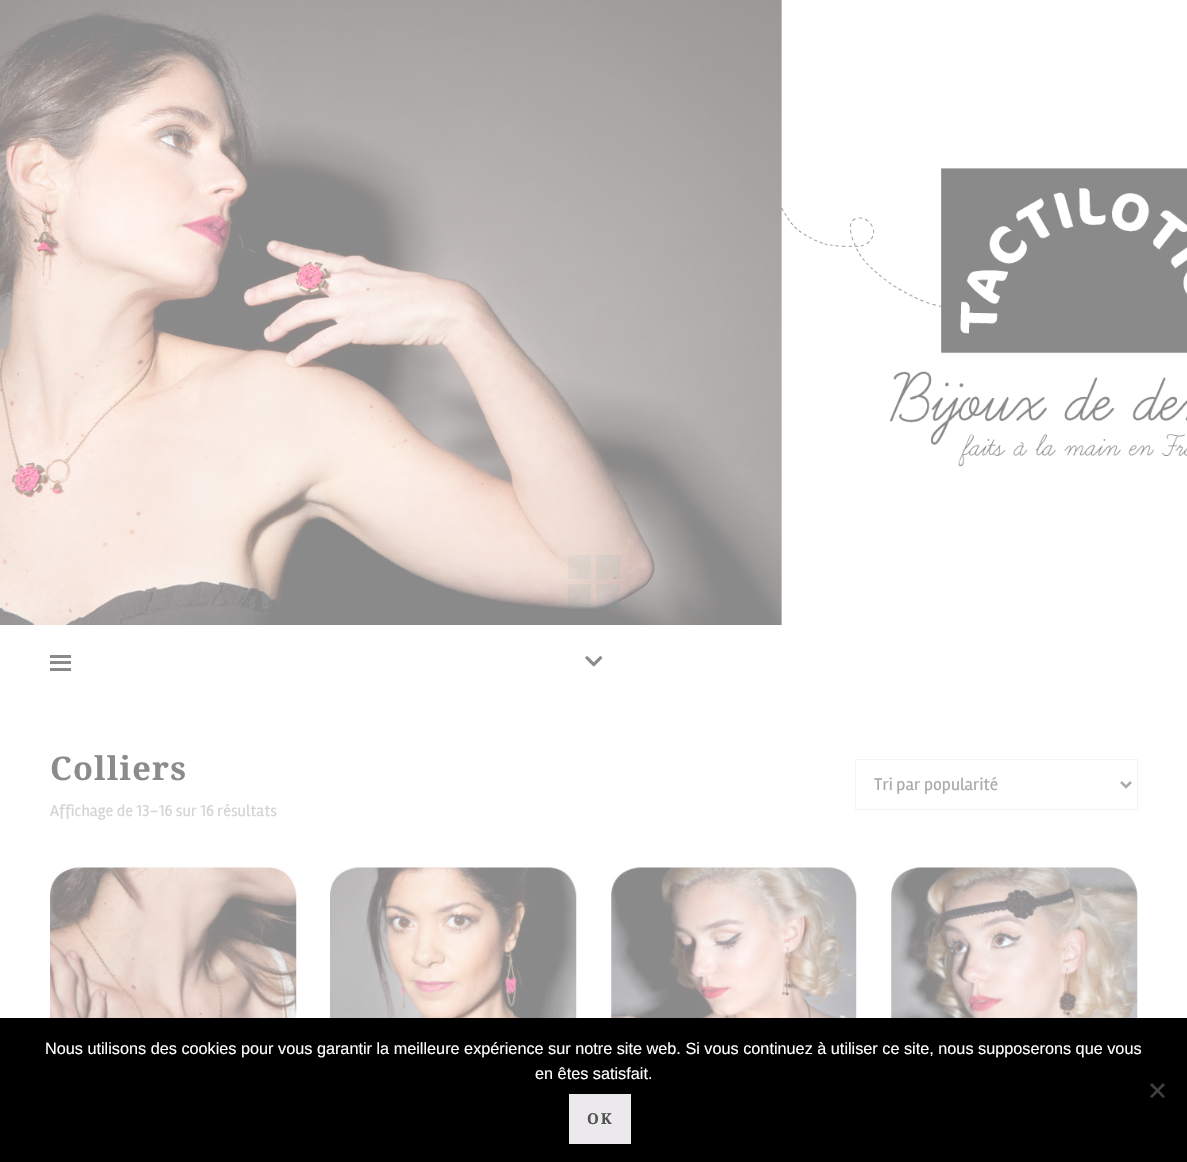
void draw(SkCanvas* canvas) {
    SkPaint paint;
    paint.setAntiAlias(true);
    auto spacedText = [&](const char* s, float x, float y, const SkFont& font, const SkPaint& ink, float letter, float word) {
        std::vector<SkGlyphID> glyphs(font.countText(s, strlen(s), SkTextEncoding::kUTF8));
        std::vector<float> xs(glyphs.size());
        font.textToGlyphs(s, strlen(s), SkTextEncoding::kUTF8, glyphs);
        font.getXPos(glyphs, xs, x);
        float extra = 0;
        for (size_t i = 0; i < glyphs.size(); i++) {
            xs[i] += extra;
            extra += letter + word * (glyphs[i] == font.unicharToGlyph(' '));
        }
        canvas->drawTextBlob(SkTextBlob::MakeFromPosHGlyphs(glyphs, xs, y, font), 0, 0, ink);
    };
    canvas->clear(0xFFFFFFFF);
    canvas->drawImageRect(SkImages::DeferredFromEncodedData(SkData::MakeFromFileName("img1.png")), SkRect::MakeXYWH(0, 0, 1187, 625), SkSamplingOptions());
    paint.setColor(0x0F219FB2);
    canvas->drawRect(SkRect::MakeXYWH(568, 555, 23, 24), paint);
    canvas->drawRect(SkRect::MakeXYWH(596, 555, 24, 24), paint);
    canvas->drawRect(SkRect::MakeXYWH(568, 584, 23, 24), paint);
    canvas->drawRect(SkRect::MakeXYWH(596, 584, 24, 24), paint);
    paint.setColor(0xFF8A8A8A);
    canvas->drawRect(SkRect::MakeXYWH(50, 655, 21, 3), paint);
    canvas->drawRect(SkRect::MakeXYWH(50, 661, 21, 3), paint);
    canvas->drawRect(SkRect::MakeXYWH(50, 668, 21, 3), paint);
    canvas->drawImageRect(SkImages::DeferredFromEncodedData(SkData::MakeFromFileName("img2.png")), SkRect::MakeXYWH(585, 656, 18, 11), SkSamplingOptions());
    SkFont font1(fontMgr->matchFamilyStyle("Droid Serif", SkFontStyle::Bold()), 32.5f);
    font1.setSubpixel(true);
    paint.setColor(0xFF8B8B8B);
    spacedText("Colliers", 50, 780, font1, paint, 1.25f, 0);
    paint.setStyle(SkPaint::kStroke_Style);
    paint.setStrokeWidth(1);
    paint.setColor(0xFFF4F4F4);
    canvas->drawRect(SkRect::MakeXYWH(855.5f, 759.5f, 282, 50), paint);
    paint.setStrokeWidth(2.5f);
    paint.setColor(0xFFAAAAAA);
    canvas->drawPath(SkPathBuilder().moveTo(1121, 782).lineTo(1126, 787).lineTo(1131, 782).detach(), paint);
    SkFont font2(fontMgr->matchFamilyStyle("Rambla", SkFontStyle::Normal()), 17.5f);
    font2.setSubpixel(true);
    paint.setStyle(SkPaint::kFill_Style);
    canvas->drawString("Tri par popularité", 874, 790, font2, paint);
    SkFont font3(fontMgr->matchFamilyStyle("Rambla", SkFontStyle::Normal()), 16.25f);
    font3.setSubpixel(true);
    paint.setColor(0xFFD4D4D4);
    canvas->drawString("Affichage de 13–16 sur 16 résultats", 50, 816, font3, paint);
    canvas->drawImageRect(SkImages::DeferredFromEncodedData(SkData::MakeFromFileName("img3.png")), SkRect::MakeXYWH(50, 867, 247, 151), SkSamplingOptions());
    canvas->drawImageRect(SkImages::DeferredFromEncodedData(SkData::MakeFromFileName("img4.png")), SkRect::MakeXYWH(330, 867, 247, 151), SkSamplingOptions());
    canvas->drawImageRect(SkImages::DeferredFromEncodedData(SkData::MakeFromFileName("img5.png")), SkRect::MakeXYWH(611, 867, 246, 151), SkSamplingOptions());
    canvas->drawImageRect(SkImages::DeferredFromEncodedData(SkData::MakeFromFileName("img6.png")), SkRect::MakeXYWH(891, 867, 247, 151), SkSamplingOptions());
    paint.setColor(0xFF000000);
    canvas->drawRect(SkRect::MakeXYWH(0, 1018, 1187, 144), paint);
    SkFont font4(fontMgr->matchFamilyStyle("Liberation Sans", SkFontStyle::Normal()), 16.25f);
    font4.setSubpixel(true);
    paint.setColor(0xFFFFFFFF);
    canvas->drawString("Nous utilisons des cookies pour vous garantir la meilleure expérience sur notre site web. Si vous continuez à utiliser ce site, nous supposerons que vous", 45, 1054, font4, paint);
    canvas->drawString("en êtes satisfait.", 535, 1079, font4, paint);
    paint.setColor(0xFF404040);
    canvas->drawPath(SkPathBuilder().moveTo(1163, 1083).lineTo(1165, 1085).lineTo(1152, 1098).lineTo(1150, 1096.5f).close().detach(), paint);
    canvas->drawPath(SkPathBuilder().moveTo(1150, 1085).lineTo(1152, 1083).lineTo(1165, 1096.5f).lineTo(1163, 1098).close().detach(), paint);
    paint.setColor(0xFFEBE9EB);
    canvas->drawRect(SkRect::MakeXYWH(569, 1094, 62, 50), paint);
    SkFont font5(fontMgr->matchFamilyStyle("Droid Serif", SkFontStyle::Bold()), 15);
    font5.setSubpixel(true);
    paint.setColor(0xFF515151);
    spacedText("OK", 587, 1124, font5, paint, 2, 0);
}
